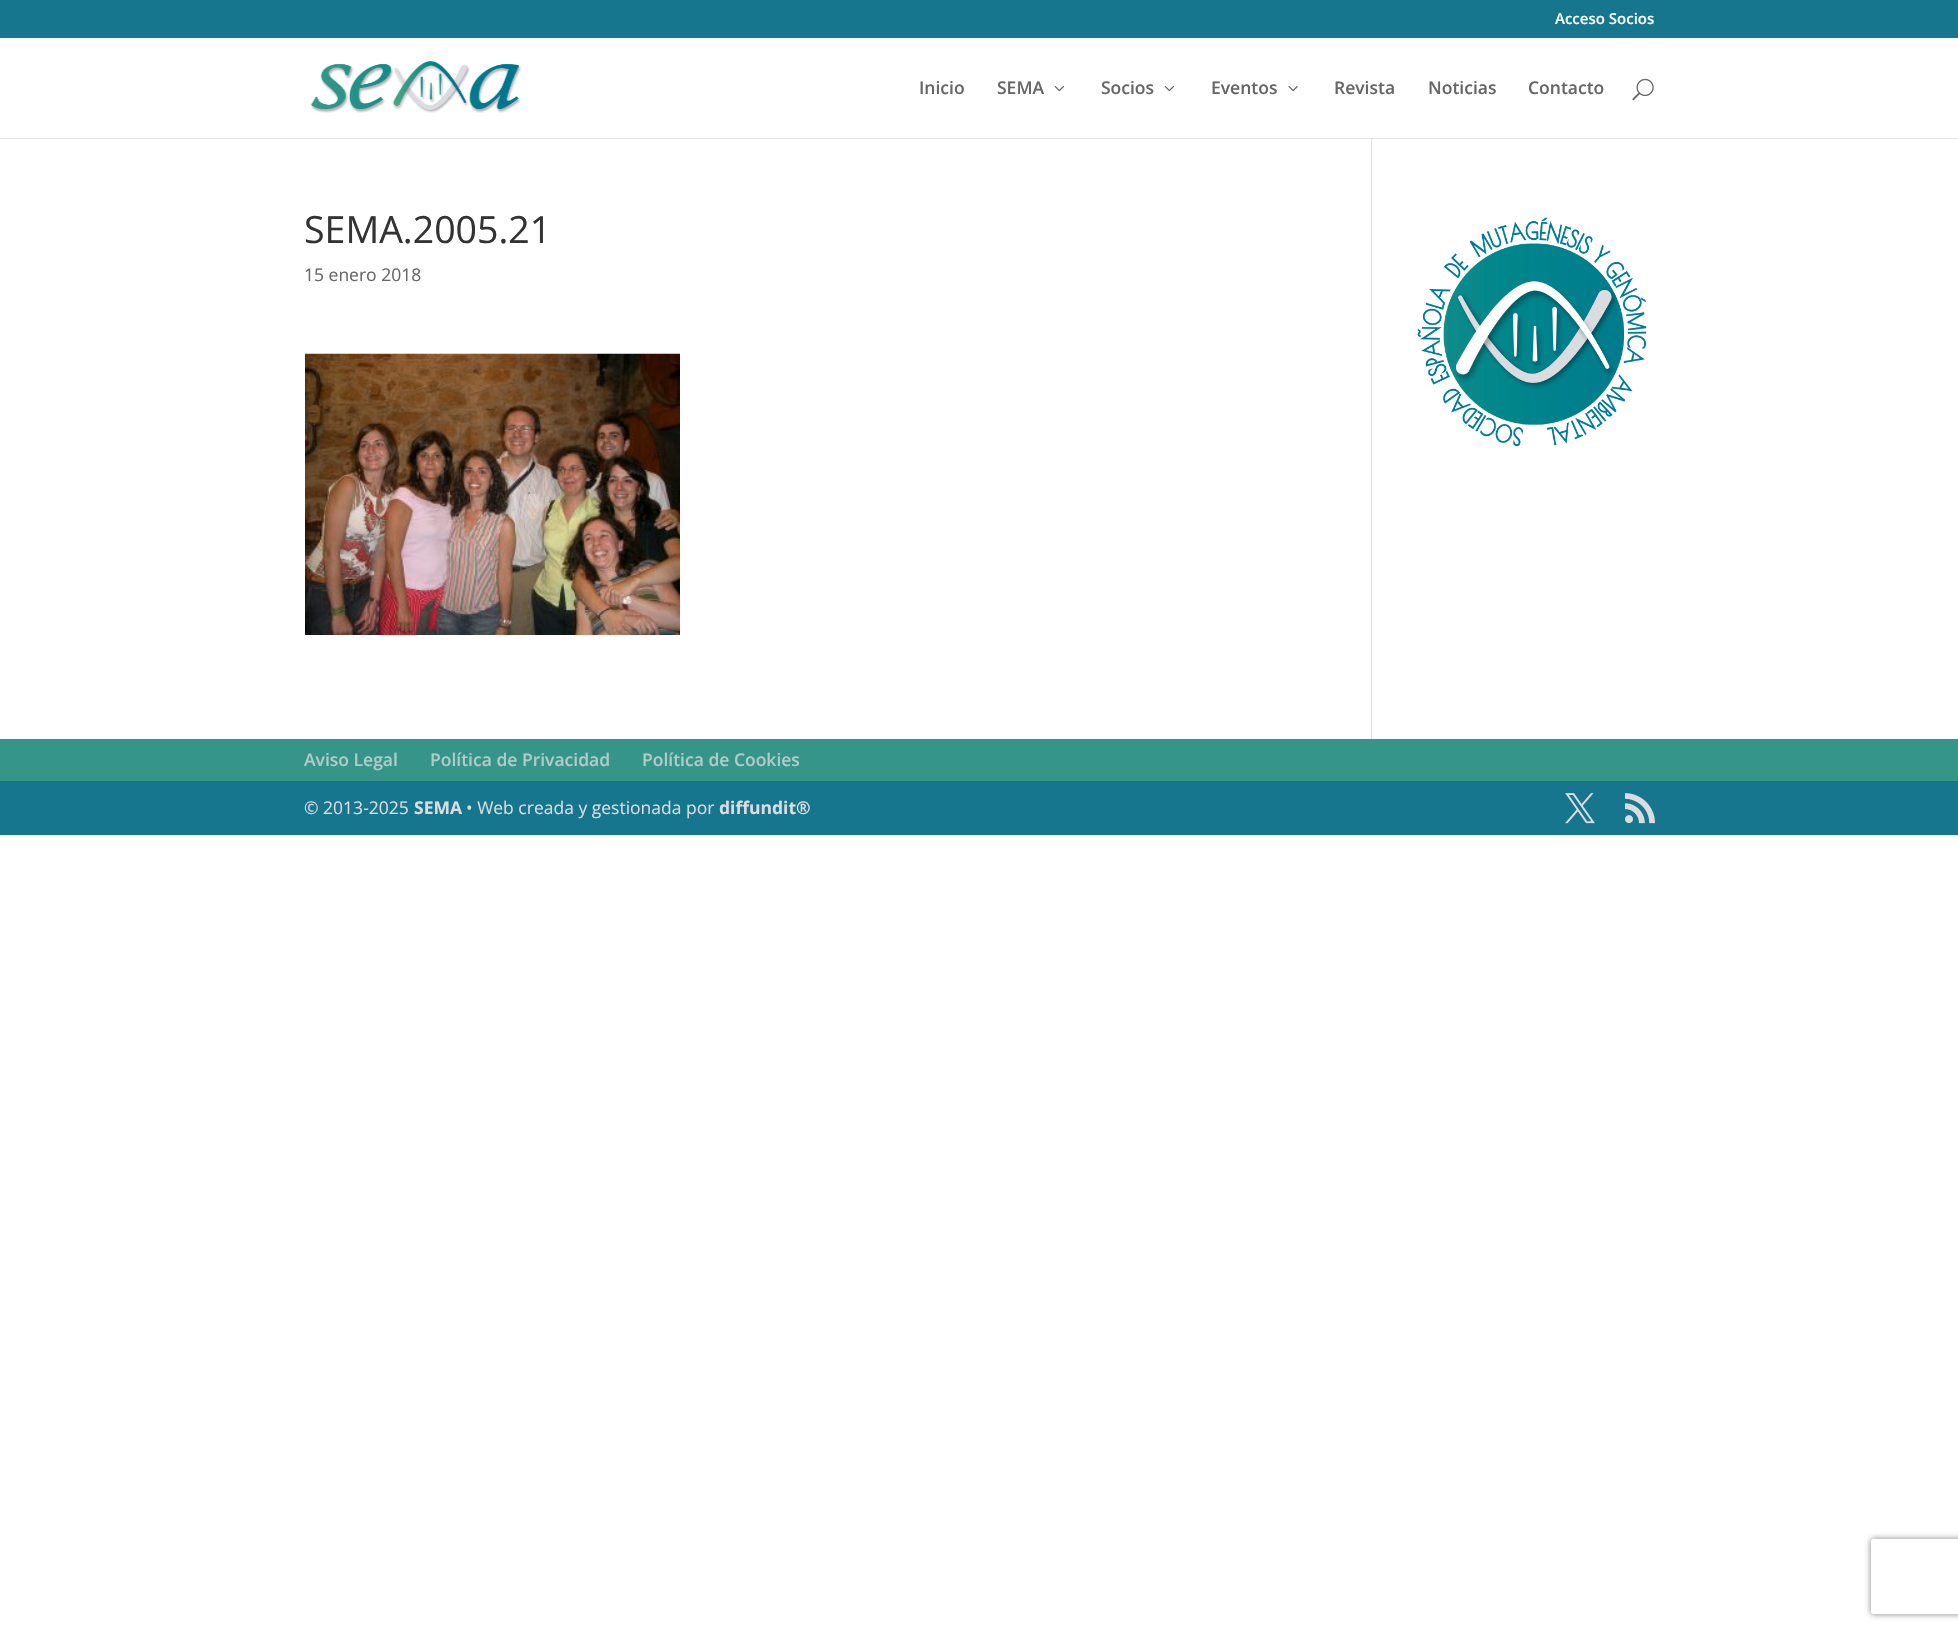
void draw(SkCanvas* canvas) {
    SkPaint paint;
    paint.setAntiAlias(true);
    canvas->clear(0xFFFFFFFF);
    paint.setColor(0xFF15768D);
    canvas->drawRect(SkRect::MakeXYWH(0, 0, 1958, 38), paint);
    SkFont font1(fontMgr->matchFamilyStyle("Open Sans", SkFontStyle(600, SkFontStyle::kNormal_Width, SkFontStyle::kUpright_Slant)), 15);
    font1.setSubpixel(true);
    paint.setColor(0xFFFFFFFF);
    canvas->drawString("Acceso Socios", 1555, 24, font1, paint);
    paint.setColor(0xFFE2E2E2);
    canvas->drawRect(SkRect::MakeXYWH(1371, 138, 1, 601), paint);
    paint.setColor(0x1A000000);
    canvas->drawPath(SkPathBuilder().moveTo(0, 138).lineTo(0, 139).lineTo(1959, 139).lineTo(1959, 39).lineTo(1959, 138).close().detach(), paint);
    canvas->drawImageRect(SkImages::DeferredFromEncodedData(SkData::MakeFromFileName("img1.png")), SkRect::MakeXYWH(310, 61, 212, 52), SkSamplingOptions());
    SkFont font2(fontMgr->matchFamilyStyle("Open Sans", SkFontStyle(600, SkFontStyle::kNormal_Width, SkFontStyle::kUpright_Slant)), 17.5f);
    font2.setSubpixel(true);
    paint.setColor(0xFF666666);
    canvas->drawString("Inicio", 919, 94, font2, paint);
    canvas->drawString("SEMA", 997, 94, font2, paint);
    canvas->drawImageRect(SkImages::DeferredFromEncodedData(SkData::MakeFromFileName("img2.png")), SkRect::MakeXYWH(1054, 86, 10, 6), SkSamplingOptions());
    canvas->drawString("Socios", 1101, 94, font2, paint);
    canvas->drawImageRect(SkImages::DeferredFromEncodedData(SkData::MakeFromFileName("img2.png")), SkRect::MakeXYWH(1164, 86, 10, 6), SkSamplingOptions());
    canvas->drawString("Eventos", 1211, 94, font2, paint);
    canvas->drawImageRect(SkImages::DeferredFromEncodedData(SkData::MakeFromFileName("img3.png")), SkRect::MakeXYWH(1288, 86, 10, 6), SkSamplingOptions());
    canvas->drawString("Revista", 1334, 94, font2, paint);
    canvas->drawString("Noticias", 1428, 94, font2, paint);
    canvas->drawString("Contacto", 1528, 94, font2, paint);
    canvas->drawImageRect(SkImages::DeferredFromEncodedData(SkData::MakeFromFileName("img4.png")), SkRect::MakeXYWH(1632, 78, 22, 23), SkSamplingOptions());
    SkFont font3(fontMgr->matchFamilyStyle("Open Sans", SkFontStyle::Normal()), 37.5f);
    font3.setSubpixel(true);
    paint.setColor(0xFF333333);
    canvas->drawString("SEMA.2005.21", 304, 243, font3, paint);
    SkFont font4(fontMgr->matchFamilyStyle("Open Sans", SkFontStyle::Normal()), 17.5f);
    font4.setSubpixel(true);
    paint.setColor(0xFF666666);
    canvas->drawString("15 enero 2018", 304, 281, font4, paint);
    canvas->drawImageRect(SkImages::DeferredFromEncodedData(SkData::MakeFromFileName("img5.png")), SkRect::MakeXYWH(305, 353, 375, 282), SkSamplingOptions());
    canvas->drawImageRect(SkImages::DeferredFromEncodedData(SkData::MakeFromFileName("img6.png")), SkRect::MakeXYWH(1417, 217, 230, 230), SkSamplingOptions());
    paint.setColor(0xFF359588);
    canvas->drawRect(SkRect::MakeXYWH(0, 739, 1958, 42), paint);
    paint.setColor(0xFFB2CACA);
    canvas->drawString("Aviso Legal", 304, 766, font2, paint);
    canvas->drawString("Política de Privacidad", 430, 766, font2, paint);
    canvas->drawString("Política de Cookies", 642, 766, font2, paint);
    paint.setColor(0xFF15768D);
    canvas->drawRect(SkRect::MakeXYWH(0, 781, 1958, 54), paint);
    paint.setColor(0xFFDBDCE0);
    canvas->drawString("© 2013-2025", 304, 814, font4, paint);
    SkFont font5(fontMgr->matchFamilyStyle("Open Sans", SkFontStyle::Bold()), 17.5f);
    font5.setSubpixel(true);
    canvas->drawString("SEMA", 414, 814, font5, paint);
    canvas->drawString("• Web creada y gestionada por", 466, 814, font4, paint);
    canvas->drawString("diffundit®", 719, 814, font5, paint);
    canvas->drawImageRect(SkImages::DeferredFromEncodedData(SkData::MakeFromFileName("img7.png")), SkRect::MakeXYWH(1565, 793, 30, 31), SkSamplingOptions());
    canvas->drawImageRect(SkImages::DeferredFromEncodedData(SkData::MakeFromFileName("img8.png")), SkRect::MakeXYWH(1625, 793, 30, 31), SkSamplingOptions());
    canvas->save();
    canvas->clipPath(SkPathBuilder(SkPathFillType::kEvenOdd).moveTo(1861, 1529).lineTo(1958, 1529).lineTo(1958, 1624).lineTo(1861, 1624).close().moveTo(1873.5f, 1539).lineTo(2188.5f, 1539).cubicTo(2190, 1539, 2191, 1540, 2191, 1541.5f).lineTo(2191, 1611.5f).cubicTo(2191, 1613, 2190, 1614, 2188.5f, 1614).lineTo(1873.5f, 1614).cubicTo(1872, 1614, 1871, 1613, 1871, 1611.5f).lineTo(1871, 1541.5f).cubicTo(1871, 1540, 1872, 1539, 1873.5f, 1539).close().detach(), true);
    paint.setColor(0xFF808080);
    paint.setMaskFilter(SkMaskFilter::MakeBlur(kNormal_SkBlurStyle, 3));
    canvas->drawRoundRect(SkRect::MakeXYWH(1871, 1539, 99, 75), 2.5f, 2.5f, paint);
    paint.setMaskFilter(nullptr);
    canvas->restore();
}
